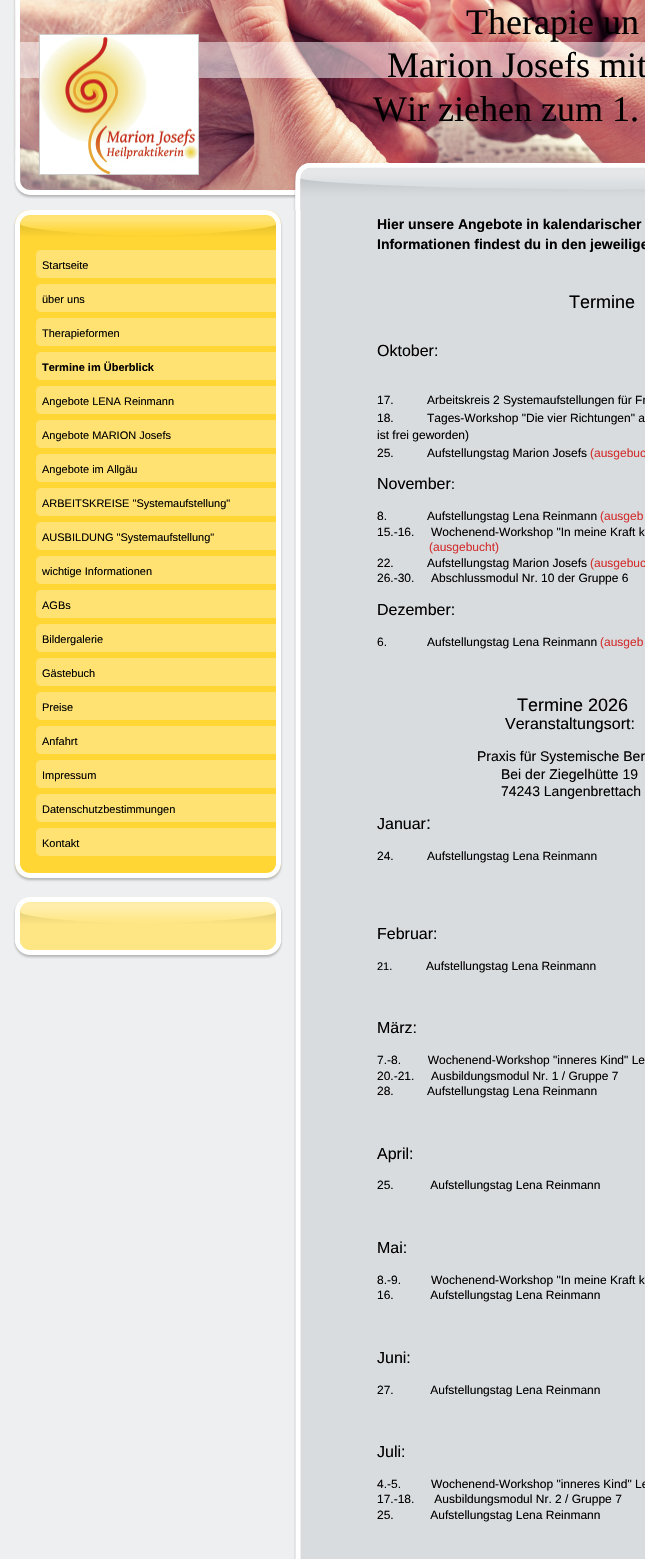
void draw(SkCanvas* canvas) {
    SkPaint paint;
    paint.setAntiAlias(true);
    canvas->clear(0xFFEEEFF0);
    canvas->drawImageRect(SkImages::DeferredFromEncodedData(SkData::MakeFromFileName("img2.png")), SkRect::MakeXYWH(15, 0, 630, 195), SkSamplingOptions());
    paint.setColor(0x80FFFFFF);
    canvas->drawRect(SkRect::MakeXYWH(15, 42, 630, 36), paint);
    canvas->drawImageRect(SkImages::DeferredFromEncodedData(SkData::MakeFromFileName("img4.png")), SkRect::MakeXYWH(0, 163, 645, 47), SkSamplingOptions());
    canvas->drawImageRect(SkImages::DeferredFromEncodedData(SkData::MakeFromFileName("img1.png")), SkRect::MakeXYWH(0, 0, 20, 191), SkSamplingOptions());
    paint.setStyle(SkPaint::kStroke_Style);
    paint.setStrokeWidth(1);
    paint.setColor(0xFFCCCCCC);
    canvas->drawRect(SkRect::MakeXYWH(39.5f, 34.5f, 159, 140), paint);
    canvas->drawImageRect(SkImages::DeferredFromEncodedData(SkData::MakeFromFileName("img3.png")), SkRect::MakeXYWH(40, 35, 158, 139), SkSamplingOptions());
    SkFont font1(fontMgr->matchFamilyStyle("Liberation Serif", SkFontStyle::Normal()), 36);
    font1.setSubpixel(true);
    paint.setStyle(SkPaint::kFill_Style);
    paint.setColor(0xFF000000);
    canvas->drawString("Therapie un", 466, 34, font1, paint);
    canvas->drawString("Marion Josefs mit", 387, 77, font1, paint);
    canvas->drawString("Wir ziehen zum 1.", 373, 121, font1, paint);
    paint.setColor(0xFFFFD633);
    canvas->drawRect(SkRect::MakeXYWH(15, 210, 266, 668), paint);
    canvas->drawImageRect(SkImages::DeferredFromEncodedData(SkData::MakeFromFileName("img5.png")), SkRect::MakeXYWH(13, 210, 270, 40), SkSamplingOptions());
    canvas->drawImageRect(SkImages::DeferredFromEncodedData(SkData::MakeFromFileName("img6.png")), SkRect::MakeXYWH(13, 862, 270, 20), SkSamplingOptions());
    canvas->drawImageRect(SkImages::DeferredFromEncodedData(SkData::MakeFromFileName("img7.png")), SkRect::MakeXYWH(13, 250, 270, 612), SkSamplingOptions());
    canvas->drawImageRect(SkImages::DeferredFromEncodedData(SkData::MakeFromFileName("img8.png")), SkRect::MakeXYWH(36, 250, 240, 28), SkSamplingOptions());
    SkFont font2(fontMgr->matchFamilyStyle("Liberation Sans", SkFontStyle::Normal()), 11);
    font2.setSubpixel(true);
    paint.setColor(0xFF000000);
    canvas->drawString("Startseite", 42, 269, font2, paint);
    canvas->drawImageRect(SkImages::DeferredFromEncodedData(SkData::MakeFromFileName("img8.png")), SkRect::MakeXYWH(36, 284, 240, 28), SkSamplingOptions());
    canvas->drawString("über uns", 42, 303, font2, paint);
    canvas->drawImageRect(SkImages::DeferredFromEncodedData(SkData::MakeFromFileName("img8.png")), SkRect::MakeXYWH(36, 318, 240, 28), SkSamplingOptions());
    canvas->drawString("Therapieformen", 42, 337, font2, paint);
    canvas->drawImageRect(SkImages::DeferredFromEncodedData(SkData::MakeFromFileName("img8.png")), SkRect::MakeXYWH(36, 352, 240, 28), SkSamplingOptions());
    SkFont font3(fontMgr->matchFamilyStyle("Liberation Sans", SkFontStyle::Bold()), 11);
    font3.setSubpixel(true);
    canvas->drawString("Termine im Überblick", 42, 371, font3, paint);
    canvas->drawImageRect(SkImages::DeferredFromEncodedData(SkData::MakeFromFileName("img8.png")), SkRect::MakeXYWH(36, 386, 240, 28), SkSamplingOptions());
    canvas->drawString("Angebote LENA Reinmann", 42, 405, font2, paint);
    canvas->drawImageRect(SkImages::DeferredFromEncodedData(SkData::MakeFromFileName("img8.png")), SkRect::MakeXYWH(36, 420, 240, 28), SkSamplingOptions());
    canvas->drawString("Angebote MARION Josefs", 42, 439, font2, paint);
    canvas->drawImageRect(SkImages::DeferredFromEncodedData(SkData::MakeFromFileName("img8.png")), SkRect::MakeXYWH(36, 454, 240, 28), SkSamplingOptions());
    canvas->drawString("Angebote im Allgäu", 42, 473, font2, paint);
    canvas->drawImageRect(SkImages::DeferredFromEncodedData(SkData::MakeFromFileName("img8.png")), SkRect::MakeXYWH(36, 488, 240, 28), SkSamplingOptions());
    canvas->drawString("ARBEITSKREISE \"Systemaufstellung\"", 42, 507, font2, paint);
    canvas->drawImageRect(SkImages::DeferredFromEncodedData(SkData::MakeFromFileName("img8.png")), SkRect::MakeXYWH(36, 522, 240, 28), SkSamplingOptions());
    canvas->drawString("AUSBILDUNG \"Systemaufstellung\"", 42, 541, font2, paint);
    canvas->drawImageRect(SkImages::DeferredFromEncodedData(SkData::MakeFromFileName("img8.png")), SkRect::MakeXYWH(36, 556, 240, 28), SkSamplingOptions());
    canvas->drawString("wichtige Informationen", 42, 575, font2, paint);
    canvas->drawImageRect(SkImages::DeferredFromEncodedData(SkData::MakeFromFileName("img8.png")), SkRect::MakeXYWH(36, 590, 240, 28), SkSamplingOptions());
    canvas->drawString("AGBs", 42, 609, font2, paint);
    canvas->drawImageRect(SkImages::DeferredFromEncodedData(SkData::MakeFromFileName("img8.png")), SkRect::MakeXYWH(36, 624, 240, 28), SkSamplingOptions());
    canvas->drawString("Bildergalerie", 42, 643, font2, paint);
    canvas->drawImageRect(SkImages::DeferredFromEncodedData(SkData::MakeFromFileName("img8.png")), SkRect::MakeXYWH(36, 658, 240, 28), SkSamplingOptions());
    canvas->drawString("Gästebuch", 42, 677, font2, paint);
    canvas->drawImageRect(SkImages::DeferredFromEncodedData(SkData::MakeFromFileName("img8.png")), SkRect::MakeXYWH(36, 692, 240, 28), SkSamplingOptions());
    canvas->drawString("Preise", 42, 711, font2, paint);
    canvas->drawImageRect(SkImages::DeferredFromEncodedData(SkData::MakeFromFileName("img8.png")), SkRect::MakeXYWH(36, 726, 240, 28), SkSamplingOptions());
    canvas->drawString("Anfahrt", 42, 745, font2, paint);
    canvas->drawImageRect(SkImages::DeferredFromEncodedData(SkData::MakeFromFileName("img8.png")), SkRect::MakeXYWH(36, 760, 240, 28), SkSamplingOptions());
    canvas->drawString("Impressum", 42, 779, font2, paint);
    canvas->drawImageRect(SkImages::DeferredFromEncodedData(SkData::MakeFromFileName("img8.png")), SkRect::MakeXYWH(36, 794, 240, 28), SkSamplingOptions());
    canvas->drawString("Datenschutzbestimmungen", 42, 813, font2, paint);
    canvas->drawImageRect(SkImages::DeferredFromEncodedData(SkData::MakeFromFileName("img8.png")), SkRect::MakeXYWH(36, 828, 240, 28), SkSamplingOptions());
    canvas->drawString("Kontakt", 42, 847, font2, paint);
    paint.setColor(0xFFFFD633);
    canvas->drawRect(SkRect::MakeXYWH(20, 902, 256, 48), paint);
    canvas->drawImageRect(SkImages::DeferredFromEncodedData(SkData::MakeFromFileName("img9.png")), SkRect::MakeXYWH(13, 897, 270, 40), SkSamplingOptions());
    canvas->drawImageRect(SkImages::DeferredFromEncodedData(SkData::MakeFromFileName("img10.png")), SkRect::MakeXYWH(13, 939, 270, 20), SkSamplingOptions());
    canvas->drawImageRect(SkImages::DeferredFromEncodedData(SkData::MakeFromFileName("img11.png")), SkRect::MakeXYWH(13, 937, 270, 2), SkSamplingOptions());
    canvas->drawImageRect(SkImages::DeferredFromEncodedData(SkData::MakeFromFileName("img12.png")), SkRect::MakeXYWH(294, 210, 351, 1349), SkSamplingOptions());
    SkFont font4(fontMgr->matchFamilyStyle("Liberation Sans", SkFontStyle::Bold()), 14);
    font4.setSubpixel(true);
    paint.setColor(0xFF000000);
    canvas->drawString("Hier unsere Angebote in kalendarischer", 377, 229, font4, paint);
    canvas->drawString("Informationen findest du in den jeweilige", 377, 249, font4, paint);
    SkFont font5(fontMgr->matchFamilyStyle("Liberation Sans", SkFontStyle::Normal()), 18);
    font5.setSubpixel(true);
    canvas->drawString("Termine", 569, 308, font5, paint);
    SkFont font6(fontMgr->matchFamilyStyle("Liberation Sans", SkFontStyle::Normal()), 16);
    font6.setSubpixel(true);
    canvas->drawString("Oktober:", 377, 356, font6, paint);
    SkFont font7(fontMgr->matchFamilyStyle("Liberation Sans", SkFontStyle::Normal()), 12);
    font7.setSubpixel(true);
    canvas->drawString("17.          Arbeitskreis 2 Systemaufstellungen für Fr", 377, 404, font7, paint);
    canvas->drawString("18.          Tages-Workshop \"Die vier Richtungen\" a", 377, 422, font7, paint);
    canvas->drawString("ist frei geworden)", 377, 439, font7, paint);
    canvas->drawString("25.          Aufstellungstag Marion Josefs", 377, 457, font7, paint);
    paint.setColor(0xFFD32F2F);
    canvas->drawString("(ausgebuc", 590, 457, font7, paint);
    paint.setColor(0xFF000000);
    canvas->drawString("November", 377, 489, font6, paint);
    SkFont font8(fontMgr->matchFamilyStyle("Liberation Sans", SkFontStyle::Normal()), 14);
    font8.setSubpixel(true);
    canvas->drawString(":", 451, 489, font8, paint);
    canvas->drawString("8.            Aufstellungstag Lena Reinmann", 377, 520, font7, paint);
    paint.setColor(0xFFD32F2F);
    canvas->drawString("(ausgeb", 600, 520, font7, paint);
    paint.setColor(0xFF000000);
    canvas->drawString("15.-16.     Wochenend-Workshop \"In meine Kraft k", 377, 536, font7, paint);
    paint.setColor(0xFFD32F2F);
    canvas->drawString("(ausgebucht)", 429, 551, font7, paint);
    paint.setColor(0xFF000000);
    canvas->drawString("22.          Aufstellungstag Marion Josefs", 377, 567, font7, paint);
    paint.setColor(0xFFD32F2F);
    canvas->drawString("(ausgebuc", 590, 567, font7, paint);
    paint.setColor(0xFF000000);
    canvas->drawString("26.-30.     Abschlussmodul Nr. 10 der Gruppe 6", 377, 582, font7, paint);
    canvas->drawString("Dezember:", 377, 615, font6, paint);
    canvas->drawString("6.            Aufstellungstag Lena Reinmann", 377, 646, font7, paint);
    paint.setColor(0xFFD32F2F);
    canvas->drawString("(ausgeb", 600, 646, font7, paint);
    paint.setColor(0xFF000000);
    canvas->drawString("Termine 2026", 517, 711, font5, paint);
    canvas->drawString("Veranstaltungsort:", 505, 729, font6, paint);
    canvas->drawString("Praxis für Systemische Ber", 477, 761, font8, paint);
    canvas->drawString("Bei der Ziegelhütte 19", 501, 779, font8, paint);
    canvas->drawString("74243 Langenbrettach", 501, 796, font8, paint);
    canvas->drawString("Januar", 377, 829, font6, paint);
    canvas->drawString(":", 426, 829, font5, paint);
    canvas->drawString("24.          Aufstellungstag Lena Reinmann", 377, 860, font7, paint);
    canvas->drawString("Februar:", 377, 939, font6, paint);
    canvas->drawString("21.", 377, 970, font2, paint);
    canvas->drawString("Aufstellungstag Lena Reinmann", 426, 970, font7, paint);
    canvas->drawString("März:", 377, 1033, font6, paint);
    canvas->drawString("7.-8.        Wochenend-Workshop \"inneres Kind\" Le", 377, 1064, font7, paint);
    canvas->drawString("20.-21.     Ausbildungsmodul Nr. 1 / Gruppe 7", 377, 1080, font7, paint);
    canvas->drawString("28.          Aufstellungstag Lena Reinmann", 377, 1095, font7, paint);
    canvas->drawString("April:", 377, 1159, font6, paint);
    canvas->drawString("25.           Aufstellungstag Lena Reinmann", 377, 1189, font7, paint);
    canvas->drawString("Mai:", 377, 1253, font6, paint);
    canvas->drawString("8.-9.         Wochenend-Workshop \"In meine Kraft k", 377, 1284, font7, paint);
    canvas->drawString("16.           Aufstellungstag Lena Reinmann", 377, 1299, font7, paint);
    canvas->drawString("Juni:", 377, 1363, font6, paint);
    canvas->drawString("27.           Aufstellungstag Lena Reinmann", 377, 1394, font7, paint);
    canvas->drawString("Juli:", 377, 1457, font6, paint);
    canvas->drawString("4.-5.         Wochenend-Workshop \"inneres Kind\" Le", 377, 1488, font7, paint);
    canvas->drawString("17.-18.      Ausbildungsmodul Nr. 2 / Gruppe 7", 377, 1503, font7, paint);
    canvas->drawString("25.           Aufstellungstag Lena Reinmann", 377, 1519, font7, paint);
}
